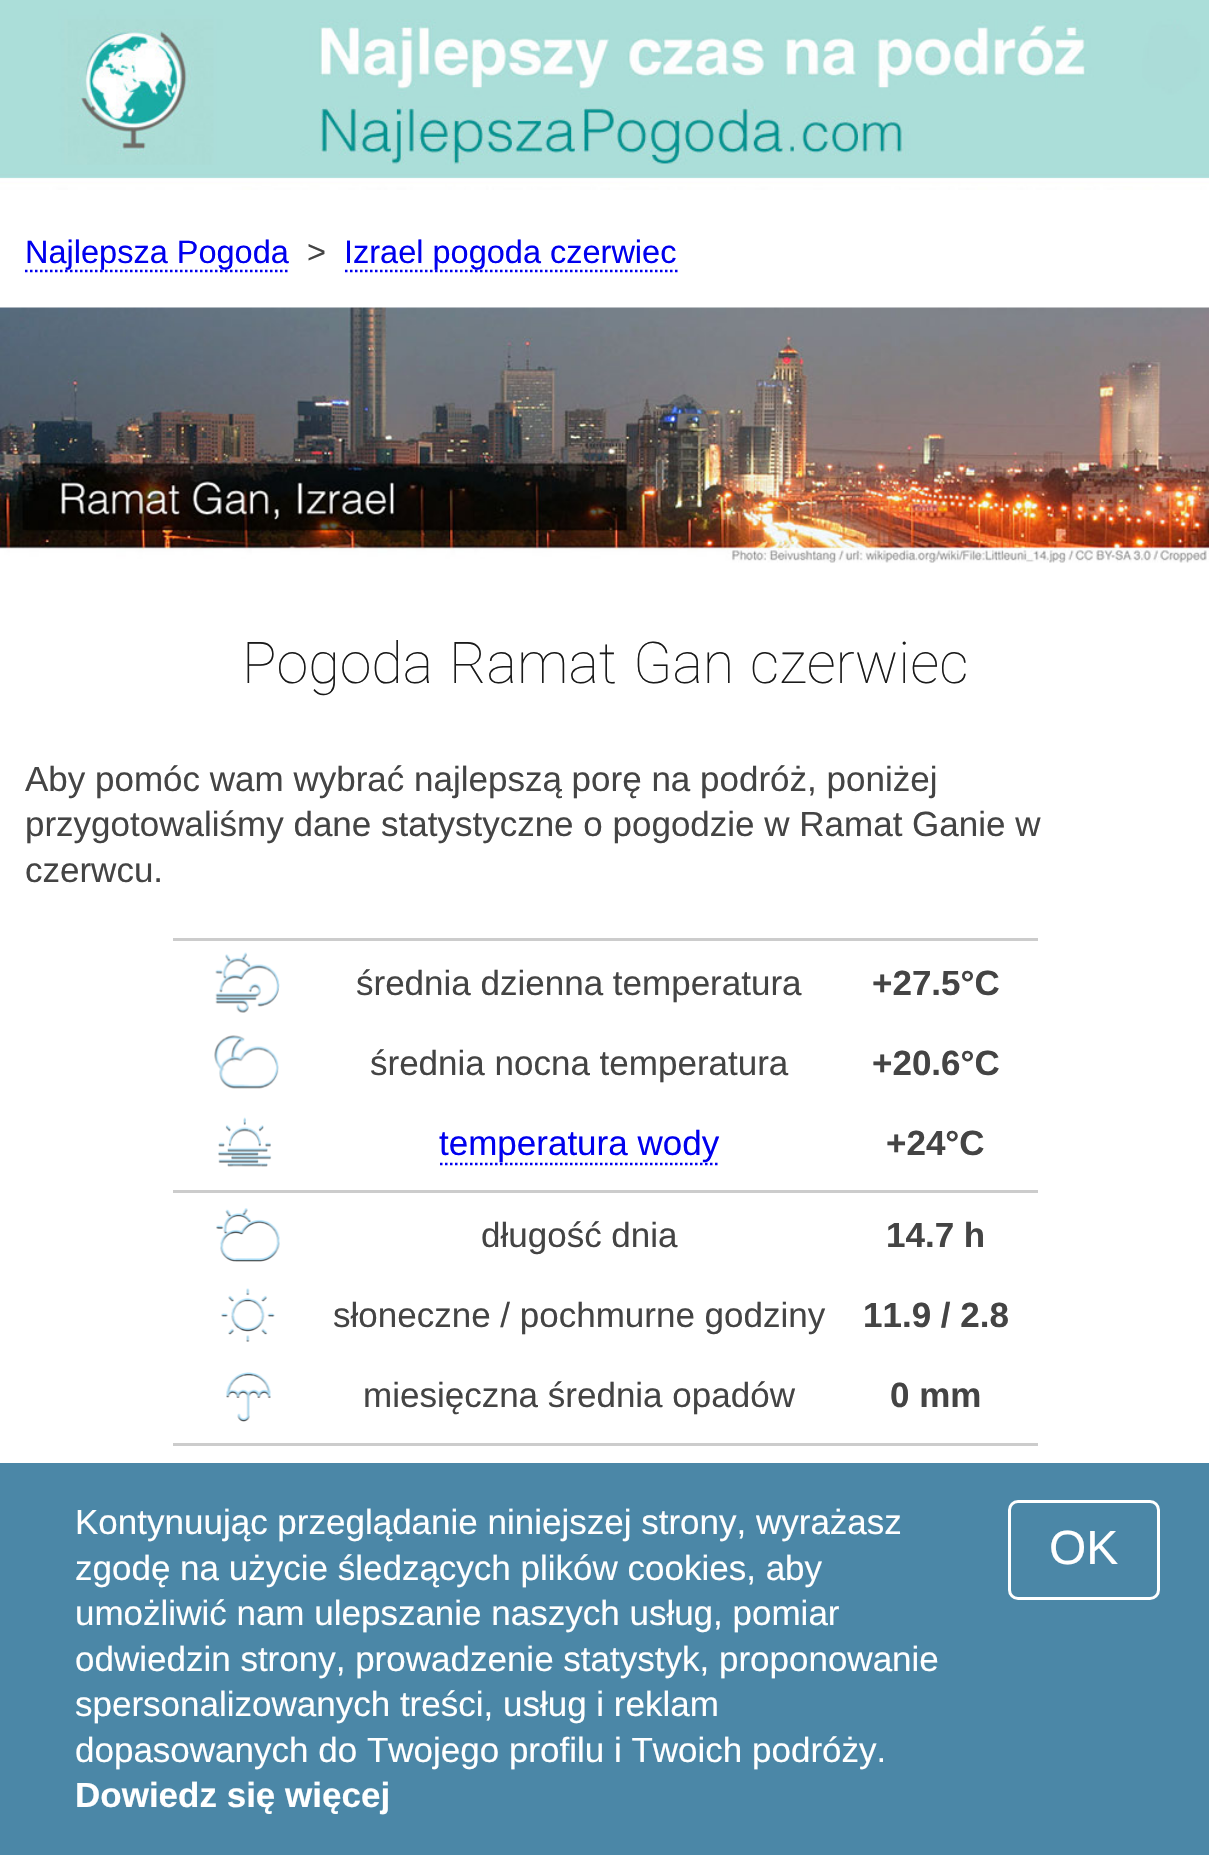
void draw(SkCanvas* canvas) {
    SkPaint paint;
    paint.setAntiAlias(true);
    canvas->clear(0xFFFFFFFF);
    canvas->drawImageRect(SkImages::DeferredFromEncodedData(SkData::MakeFromFileName("img1.png")), SkRect::MakeXYWH(0, 0, 1209, 190), SkSamplingOptions());
    paint.setStyle(SkPaint::kStroke_Style);
    paint.setStrokeWidth(2.5f);
    paint.setColor(0xFF0000EE);
    paint.setPathEffect(SkDashPathEffect::Make({{2.5f, 2.5f}}, 0));
    canvas->drawPath(SkPathBuilder().moveTo(25, 271).lineTo(290, 271).detach(), paint);
    paint.setPathEffect(nullptr);
    SkFont font1(fontMgr->matchFamilyStyle("Liberation Sans", SkFontStyle::Normal()), 32.5f);
    font1.setSubpixel(true);
    paint.setStyle(SkPaint::kFill_Style);
    canvas->drawString("Najlepsza Pogoda", 25, 263, font1, paint);
    paint.setColor(0xFF444444);
    canvas->drawString(">", 307, 263, font1, paint);
    paint.setStyle(SkPaint::kStroke_Style);
    paint.setColor(0xFF0000EE);
    paint.setPathEffect(SkDashPathEffect::Make({{2.5f, 2.5f}}, 0));
    canvas->drawPath(SkPathBuilder().moveTo(345, 271).lineTo(677.5f, 271).detach(), paint);
    paint.setPathEffect(nullptr);
    paint.setStyle(SkPaint::kFill_Style);
    canvas->drawString("Izrael pogoda czerwiec", 344, 263, font1, paint);
    canvas->drawImageRect(SkImages::DeferredFromEncodedData(SkData::MakeFromFileName("img2.png")), SkRect::MakeXYWH(0, 307, 1209, 256), SkSamplingOptions());
    SkFont font2(fontMgr->matchFamilyStyle("Roboto", SkFontStyle(100, SkFontStyle::kNormal_Width, SkFontStyle::kUpright_Slant)), 57.5f);
    font2.setSubpixel(true);
    paint.setColor(0xFF1A1A1A);
    canvas->drawString("Pogoda", 242, 683, font2, paint);
    canvas->drawString("Ramat", 449, 683, font2, paint);
    canvas->drawString("Gan", 633, 683, font2, paint);
    canvas->drawString("czerwiec", 750, 683, font2, paint);
    SkFont font3(fontMgr->matchFamilyStyle("Liberation Sans", SkFontStyle::Normal()), 35);
    font3.setSubpixel(true);
    paint.setColor(0xFF444444);
    canvas->drawString("Aby pomóc wam wybrać najlepszą porę na podróż, poniżej", 25, 791, font3, paint);
    canvas->drawString("przygotowaliśmy dane statystyczne o pogodzie w Ramat Ganie w", 25, 836, font3, paint);
    canvas->drawString("czerwcu.", 25, 882, font3, paint);
    paint.setColor(0xFFCCCCCC);
    canvas->drawRect(SkRect::MakeXYWH(173, 938, 865, 3), paint);
    canvas->drawImageRect(SkImages::DeferredFromEncodedData(SkData::MakeFromFileName("img3.png")), SkRect::MakeXYWH(215, 952, 65, 61), SkSamplingOptions());
    paint.setColor(0xFF444444);
    canvas->drawString("średnia dzienna temperatura", 356, 995, font3, paint);
    SkFont font4(fontMgr->matchFamilyStyle("Liberation Sans", SkFontStyle::Bold()), 35);
    font4.setSubpixel(true);
    canvas->drawString("+27.5°C", 872, 995, font4, paint);
    canvas->drawImageRect(SkImages::DeferredFromEncodedData(SkData::MakeFromFileName("img4.png")), SkRect::MakeXYWH(214, 1035, 65, 54), SkSamplingOptions());
    canvas->drawString("średnia nocna temperatura", 370, 1075, font3, paint);
    canvas->drawString("+20.6°C", 872, 1075, font4, paint);
    canvas->drawImageRect(SkImages::DeferredFromEncodedData(SkData::MakeFromFileName("img5.png")), SkRect::MakeXYWH(218, 1117, 54, 50), SkSamplingOptions());
    paint.setStyle(SkPaint::kStroke_Style);
    paint.setColor(0xFF0000EE);
    paint.setPathEffect(SkDashPathEffect::Make({{2.5f, 2.5f}}, 0));
    canvas->drawPath(SkPathBuilder().moveTo(440, 1164).lineTo(720, 1164).detach(), paint);
    paint.setPathEffect(nullptr);
    paint.setStyle(SkPaint::kFill_Style);
    canvas->drawString("temperatura wody", 439, 1155, font3, paint);
    paint.setColor(0xFF444444);
    canvas->drawString("+24°C", 886, 1155, font4, paint);
    paint.setColor(0xFFCCCCCC);
    canvas->drawRect(SkRect::MakeXYWH(173, 1190, 865, 3), paint);
    canvas->drawImageRect(SkImages::DeferredFromEncodedData(SkData::MakeFromFileName("img6.png")), SkRect::MakeXYWH(216, 1208, 64, 54), SkSamplingOptions());
    paint.setColor(0xFF444444);
    canvas->drawString("długość dnia", 481, 1247, font3, paint);
    canvas->drawString("14.7 h", 886, 1247, font4, paint);
    canvas->drawImageRect(SkImages::DeferredFromEncodedData(SkData::MakeFromFileName("img7.png")), SkRect::MakeXYWH(221, 1288, 54, 54), SkSamplingOptions());
    canvas->drawString("słoneczne / pochmurne godziny", 333, 1327, font3, paint);
    canvas->drawString("11.9 / 2.8", 863, 1327, font4, paint);
    canvas->drawImageRect(SkImages::DeferredFromEncodedData(SkData::MakeFromFileName("img8.png")), SkRect::MakeXYWH(226, 1372, 45, 50), SkSamplingOptions());
    canvas->drawString("miesięczna średnia opadów", 363, 1407, font3, paint);
    canvas->drawString("0 mm", 890, 1407, font4, paint);
    paint.setColor(0xFFCCCCCC);
    canvas->drawRect(SkRect::MakeXYWH(173, 1443, 865, 3), paint);
    paint.setColor(0xFF4B87A7);
    canvas->drawRect(SkRect::MakeXYWH(0, 1463, 1209, 392), paint);
    paint.setColor(0xFFFFFFFF);
    canvas->drawString("Kontynuując przeglądanie niniejszej strony, wyrażasz", 75, 1534, font3, paint);
    canvas->drawString("zgodę na użycie śledzących plików cookies, aby", 75, 1580, font3, paint);
    canvas->drawString("umożliwić nam ulepszanie naszych usług, pomiar", 75, 1625, font3, paint);
    canvas->drawString("odwiedzin strony, prowadzenie statystyk, proponowanie", 75, 1671, font3, paint);
    canvas->drawString("spersonalizowanych treści, usług i reklam", 75, 1716, font3, paint);
    canvas->drawString("dopasowanych do Twojego profilu i Twoich podróży.", 75, 1762, font3, paint);
    canvas->drawString("Dowiedz się więcej", 75, 1807, font4, paint);
    paint.setStyle(SkPaint::kStroke_Style);
    paint.setStrokeWidth(3);
    canvas->drawRoundRect(SkRect::MakeXYWH(1009.5f, 1501.5f, 149, 97), 8.5f, 8.5f, paint);
    SkFont font5(fontMgr->matchFamilyStyle("Liberation Sans", SkFontStyle::Normal()), 48);
    font5.setSubpixel(true);
    paint.setStyle(SkPaint::kFill_Style);
    canvas->drawString("OK", 1049, 1564, font5, paint);
}
